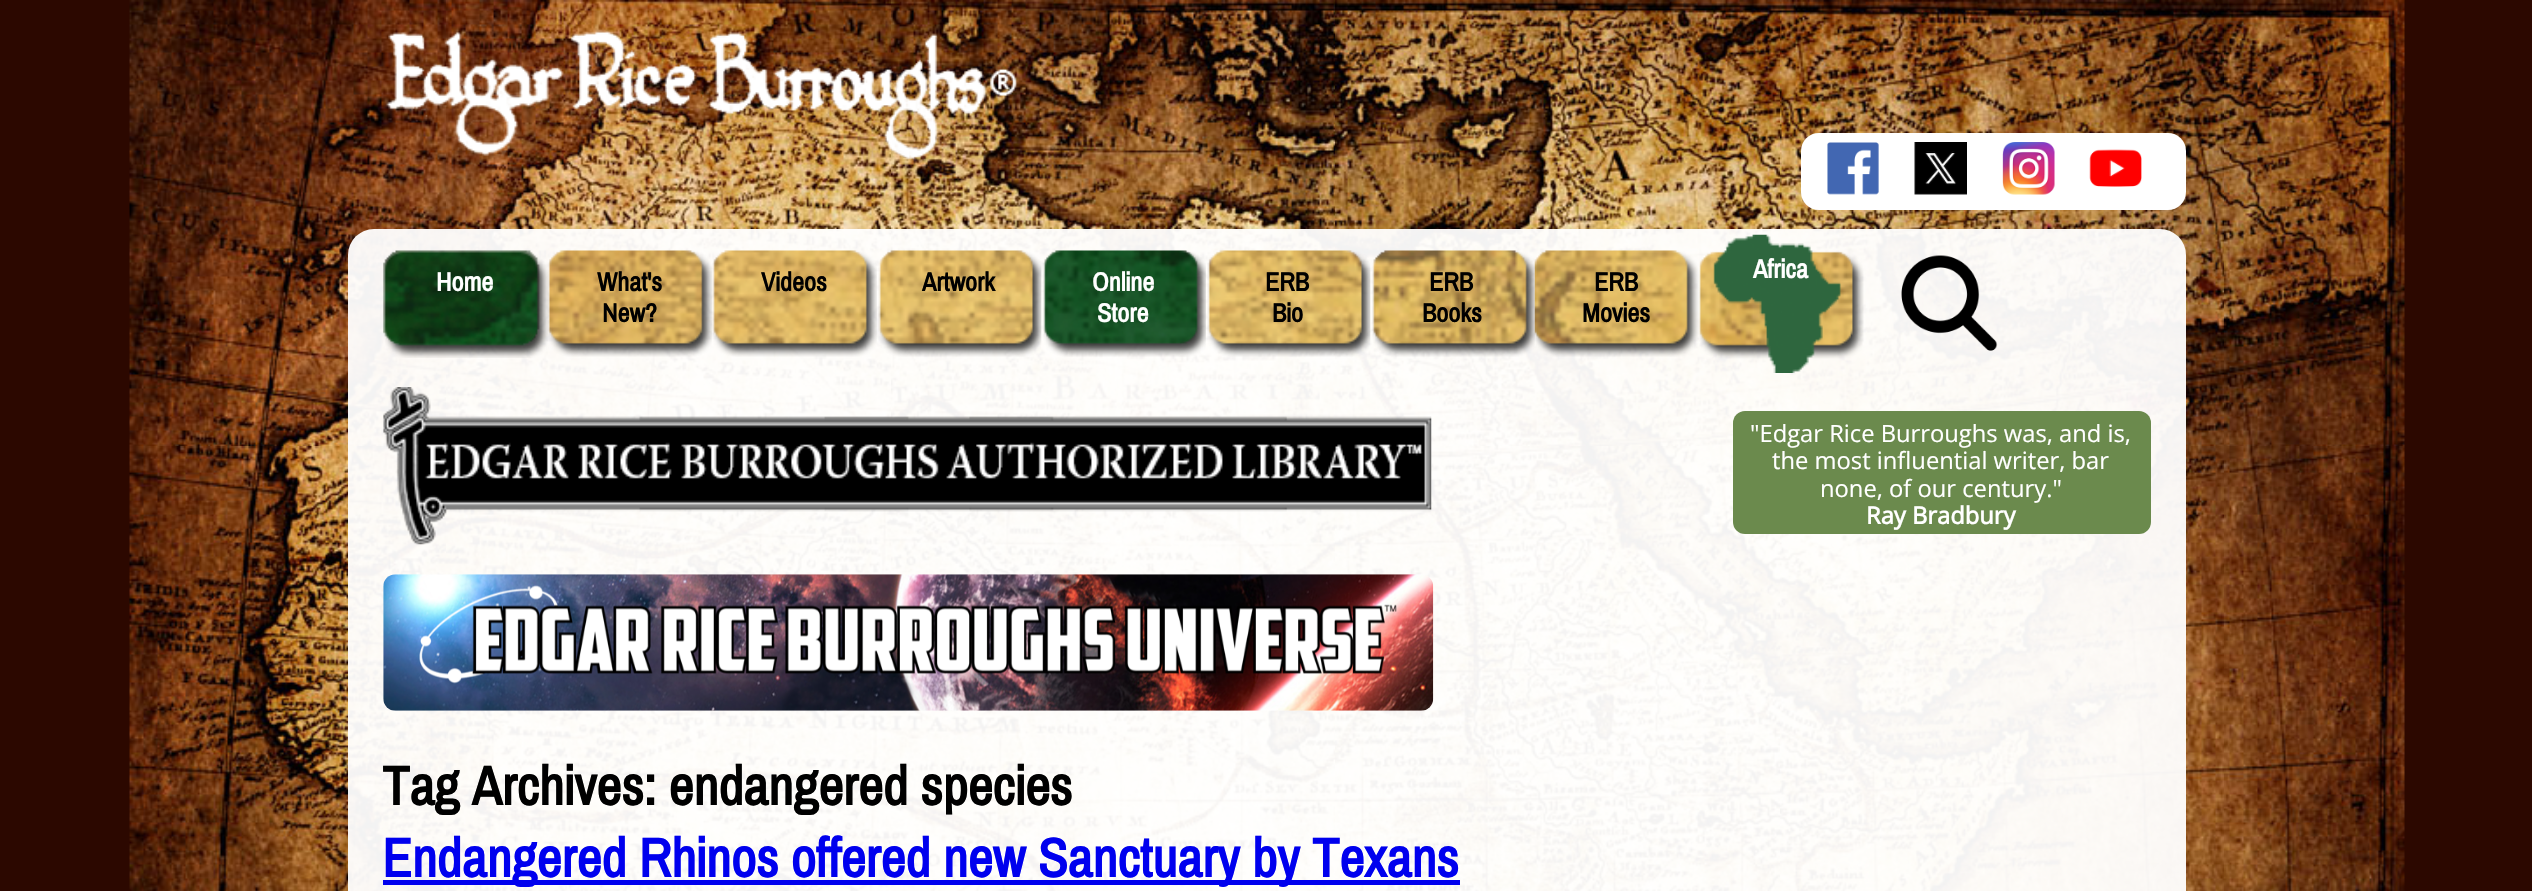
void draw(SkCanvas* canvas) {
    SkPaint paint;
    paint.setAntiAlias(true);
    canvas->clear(0xFF2C0800);
    canvas->drawImageRect(SkImages::DeferredFromEncodedData(SkData::MakeFromFileName("img1.png")), SkRect::MakeXYWH(129, 0, 2276, 891), SkSamplingOptions());
    canvas->drawImageRect(SkImages::DeferredFromEncodedData(SkData::MakeFromFileName("img2.png")), SkRect::MakeXYWH(380, 29, 637, 140), SkSamplingOptions());
    paint.setColor(0xFFFFFFFF);
    canvas->drawRoundRect(SkRect::MakeXYWH(1801, 133, 385, 77), 18, 18, paint);
    canvas->drawImageRect(SkImages::DeferredFromEncodedData(SkData::MakeFromFileName("img3.png")), SkRect::MakeXYWH(1827, 142, 52, 53), SkSamplingOptions());
    canvas->drawImageRect(SkImages::DeferredFromEncodedData(SkData::MakeFromFileName("img4.png")), SkRect::MakeXYWH(1914, 142, 53, 53), SkSamplingOptions());
    canvas->drawImageRect(SkImages::DeferredFromEncodedData(SkData::MakeFromFileName("img5.png")), SkRect::MakeXYWH(2002, 142, 53, 53), SkSamplingOptions());
    canvas->drawImageRect(SkImages::DeferredFromEncodedData(SkData::MakeFromFileName("img6.png")), SkRect::MakeXYWH(2089, 149, 53, 38), SkSamplingOptions());
    paint.setColor(0xF2FFFFFF);
    canvas->drawRoundRect(SkRect::MakeXYWH(348, 229, 1838, 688), 26, 26, paint);
    canvas->drawImageRect(SkImages::DeferredFromEncodedData(SkData::MakeFromFileName("img7.png")), SkRect::MakeXYWH(1699, 234, 165, 139), SkSamplingOptions());
    SkFont font1(fontMgr->matchFamilyStyle("Pragati Narrow", SkFontStyle::Bold()), 28.5f);
    font1.setSubpixel(true);
    paint.setColor(0xFFFFFFFF);
    canvas->drawString("Africa", 1753, 278, font1, paint);
    canvas->drawImageRect(SkImages::DeferredFromEncodedData(SkData::MakeFromFileName("img8.png")), SkRect::MakeXYWH(1901, 255, 97, 96), SkSamplingOptions());
    canvas->drawImageRect(SkImages::DeferredFromEncodedData(SkData::MakeFromFileName("img9.png")), SkRect::MakeXYWH(383, 250, 165, 108), SkSamplingOptions());
    canvas->drawString("Home", 436, 291, font1, paint);
    canvas->drawImageRect(SkImages::DeferredFromEncodedData(SkData::MakeFromFileName("img10.png")), SkRect::MakeXYWH(547, 250, 165, 107), SkSamplingOptions());
    paint.setColor(0xFF000000);
    canvas->drawString("What's", 597, 291, font1, paint);
    canvas->drawString("New?", 602, 322, font1, paint);
    canvas->drawImageRect(SkImages::DeferredFromEncodedData(SkData::MakeFromFileName("img11.png")), SkRect::MakeXYWH(712, 250, 165, 107), SkSamplingOptions());
    canvas->drawString("Videos", 761, 291, font1, paint);
    canvas->drawImageRect(SkImages::DeferredFromEncodedData(SkData::MakeFromFileName("img12.png")), SkRect::MakeXYWH(878, 250, 164, 107), SkSamplingOptions());
    canvas->drawString("Artwork", 922, 291, font1, paint);
    canvas->drawImageRect(SkImages::DeferredFromEncodedData(SkData::MakeFromFileName("img13.png")), SkRect::MakeXYWH(1043, 250, 163, 107), SkSamplingOptions());
    paint.setColor(0xFFFFFFFF);
    canvas->drawString("Online", 1092, 291, font1, paint);
    canvas->drawString("Store", 1097, 322, font1, paint);
    canvas->drawImageRect(SkImages::DeferredFromEncodedData(SkData::MakeFromFileName("img14.png")), SkRect::MakeXYWH(1207, 250, 164, 107), SkSamplingOptions());
    paint.setColor(0xFF000000);
    canvas->drawString("ERB", 1265, 291, font1, paint);
    canvas->drawString("Bio", 1272, 322, font1, paint);
    canvas->drawImageRect(SkImages::DeferredFromEncodedData(SkData::MakeFromFileName("img15.png")), SkRect::MakeXYWH(1372, 250, 163, 107), SkSamplingOptions());
    canvas->drawString("ERB", 1429, 291, font1, paint);
    canvas->drawString("Books", 1422, 322, font1, paint);
    canvas->drawImageRect(SkImages::DeferredFromEncodedData(SkData::MakeFromFileName("img16.png")), SkRect::MakeXYWH(1534, 250, 165, 107), SkSamplingOptions());
    canvas->drawString("ERB", 1594, 291, font1, paint);
    canvas->drawString("Movies", 1582, 322, font1, paint);
    canvas->drawImageRect(SkImages::DeferredFromEncodedData(SkData::MakeFromFileName("img17.png")), SkRect::MakeXYWH(383, 387, 1049, 158), SkSamplingOptions());
    canvas->drawImageRect(SkImages::DeferredFromEncodedData(SkData::MakeFromFileName("img18.png")), SkRect::MakeXYWH(383, 574, 1051, 137), SkSamplingOptions());
    paint.setColor(0xFF6B8A4D);
    canvas->drawRoundRect(SkRect::MakeXYWH(1733, 411, 418, 123), 12, 12, paint);
    SkFont font2(fontMgr->matchFamilyStyle("Open Sans", SkFontStyle::Normal()), 23.75f);
    font2.setSubpixel(true);
    paint.setColor(0xFFFFFFFF);
    canvas->drawString("\"Edgar Rice Burroughs was, and is,", 1750, 442, font2, paint);
    canvas->drawString("the most influential writer, bar", 1772, 469, font2, paint);
    canvas->drawString("none, of our century.\"", 1820, 497, font2, paint);
    SkFont font3(fontMgr->matchFamilyStyle("Open Sans", SkFontStyle::Bold()), 23.75f);
    font3.setSubpixel(true);
    canvas->drawString("Ray Bradbury", 1866, 524, font3, paint);
    SkFont font4(fontMgr->matchFamilyStyle("Pragati Narrow", SkFontStyle::Bold()), 59.5f);
    font4.setSubpixel(true);
    paint.setColor(0xFF000000);
    canvas->drawString("Tag Archives: endangered species", 382, 805, font4, paint);
    paint.setColor(0xFF0000EE);
    canvas->drawRect(SkRect::MakeXYWH(383, 880, 1077, 5), paint);
    canvas->drawString("Endangered Rhinos offered new Sanctuary by Texans", 382, 877, font4, paint);
}
